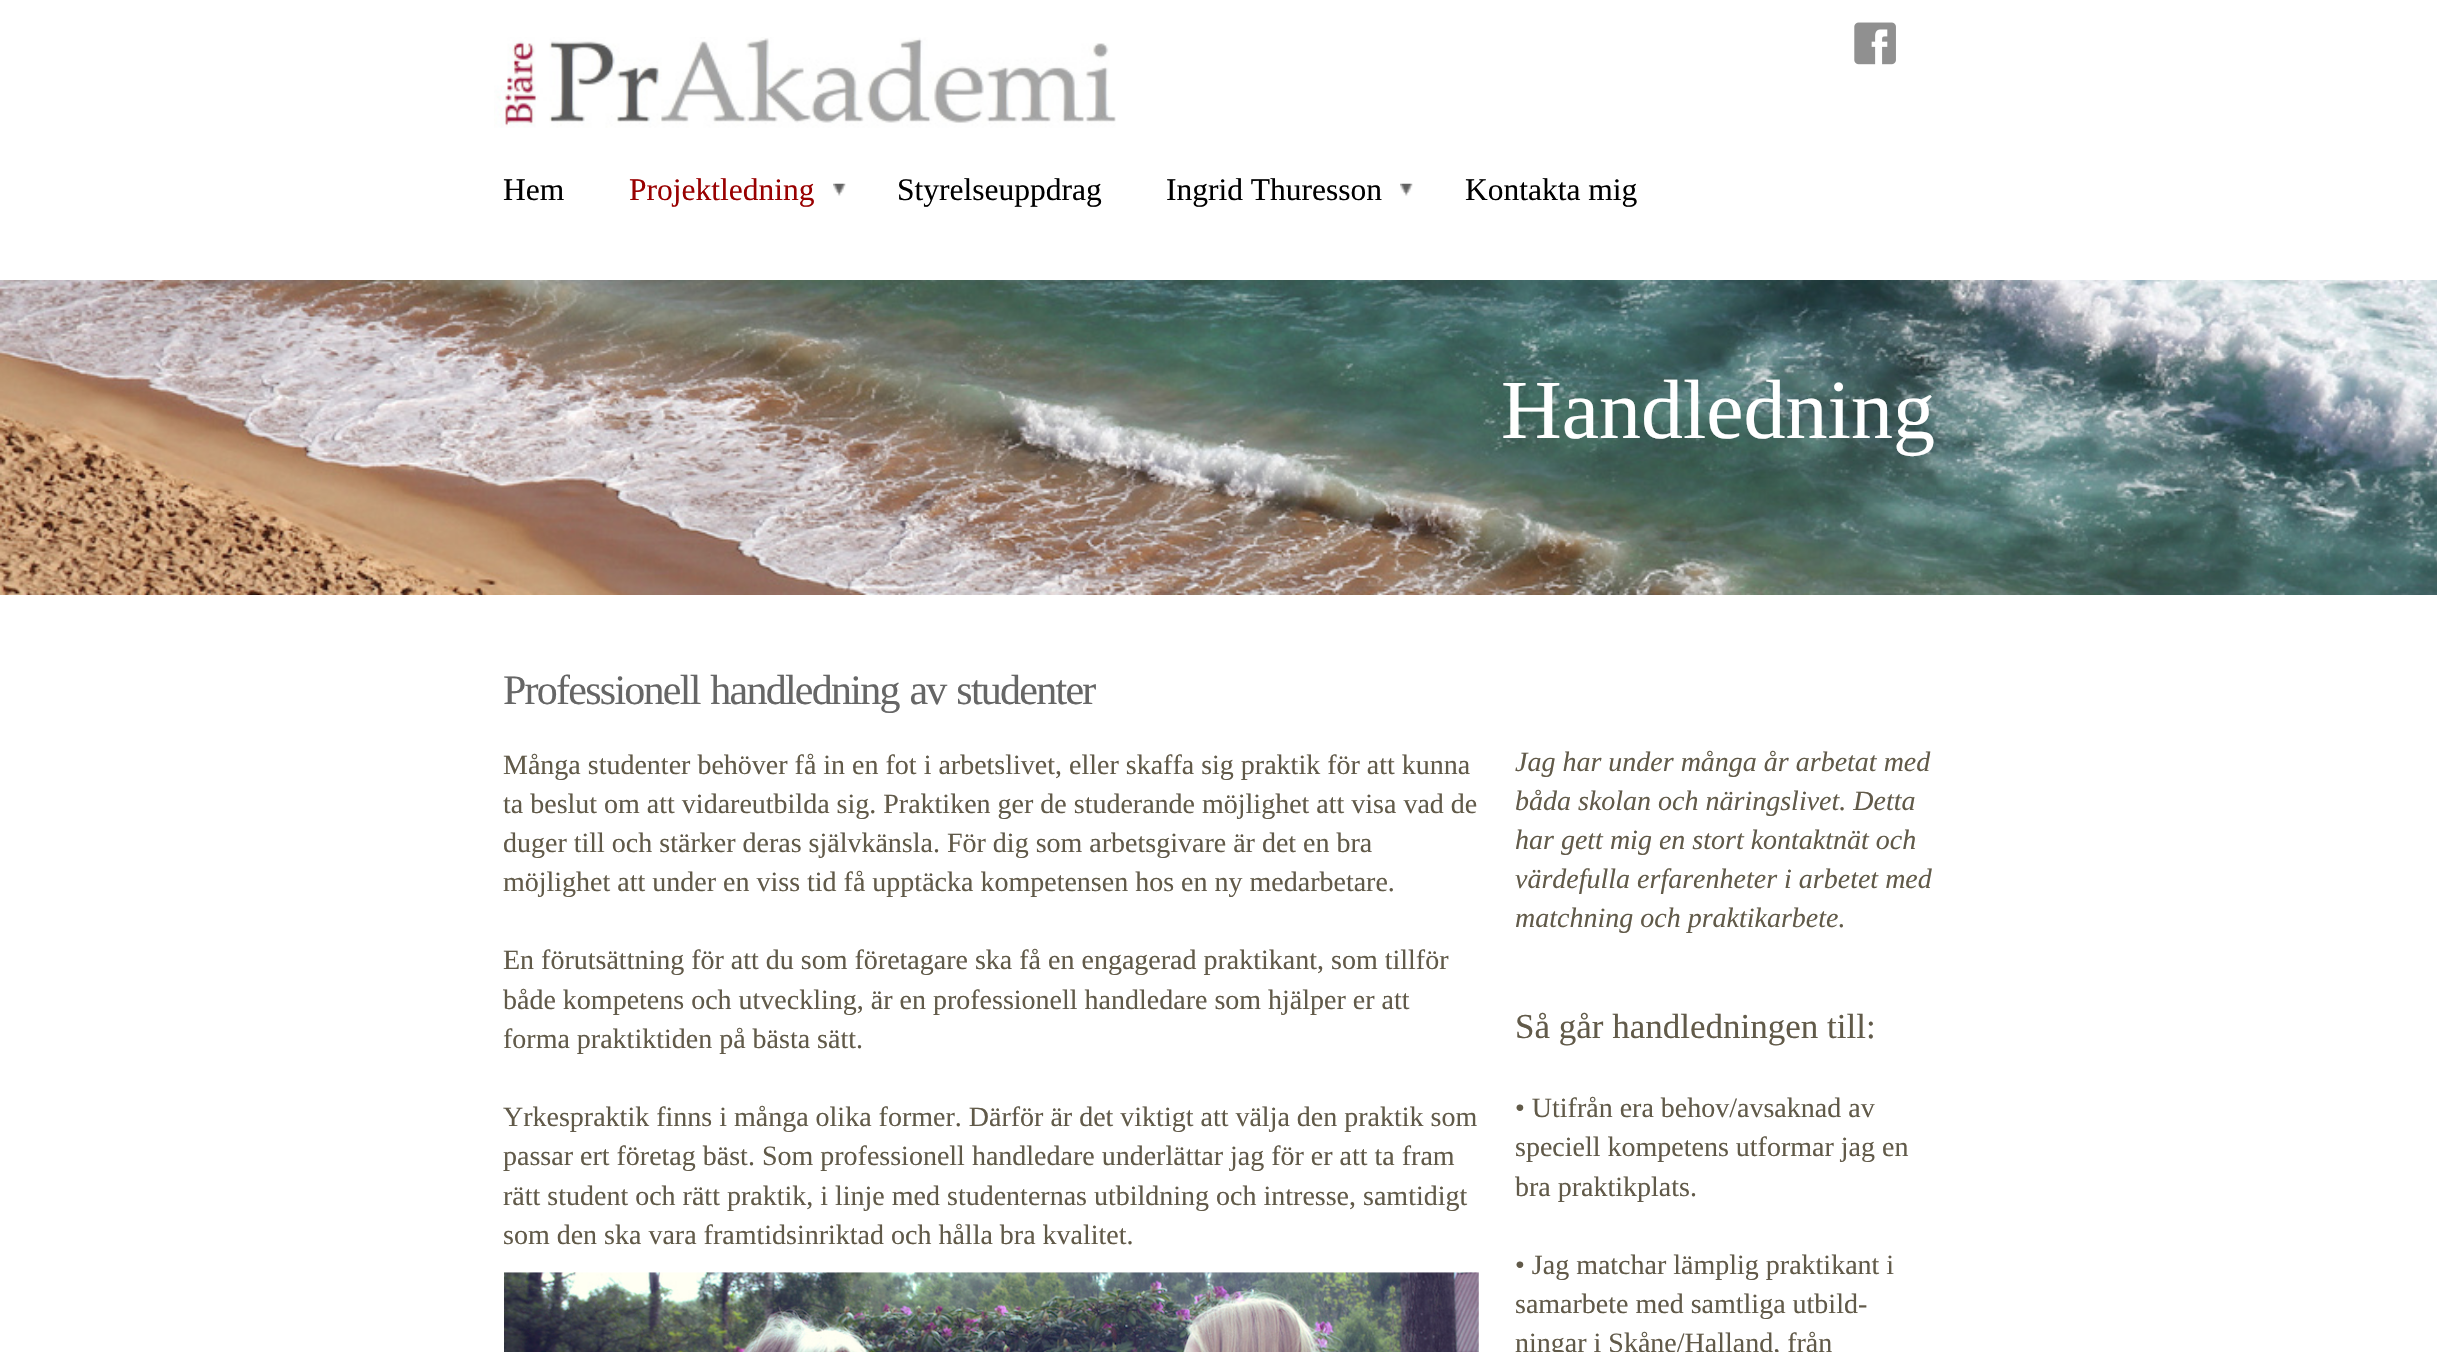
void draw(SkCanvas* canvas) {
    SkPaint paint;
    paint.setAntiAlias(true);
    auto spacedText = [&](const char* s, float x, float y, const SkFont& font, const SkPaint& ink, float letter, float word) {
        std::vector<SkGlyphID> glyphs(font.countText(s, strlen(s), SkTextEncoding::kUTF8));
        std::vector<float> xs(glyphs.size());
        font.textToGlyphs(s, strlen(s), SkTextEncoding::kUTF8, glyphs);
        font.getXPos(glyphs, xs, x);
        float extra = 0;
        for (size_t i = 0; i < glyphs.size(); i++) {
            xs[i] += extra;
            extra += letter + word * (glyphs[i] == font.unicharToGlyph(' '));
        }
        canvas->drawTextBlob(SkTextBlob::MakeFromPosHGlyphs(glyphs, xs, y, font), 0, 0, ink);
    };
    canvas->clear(0xFFFFFFFF);
    canvas->drawImageRect(SkImages::DeferredFromEncodedData(SkData::MakeFromFileName("img1.png")), SkRect::MakeXYWH(494, 37, 622, 91), SkSamplingOptions());
    canvas->drawImageRect(SkImages::DeferredFromEncodedData(SkData::MakeFromFileName("img2.png")), SkRect::MakeXYWH(1854, 22, 42, 43), SkSamplingOptions());
    SkFont font1(fontMgr->matchFamilyStyle("Liberation Serif", SkFontStyle::Normal()), 31.5f);
    font1.setSubpixel(true);
    paint.setColor(0xFF000000);
    canvas->drawString("Hem", 503, 200, font1, paint);
    canvas->drawImageRect(SkImages::DeferredFromEncodedData(SkData::MakeFromFileName("img3.png")), SkRect::MakeXYWH(833, 183, 13, 13), SkSamplingOptions());
    paint.setColor(0xFF990000);
    canvas->drawString("Projektledning", 629, 200, font1, paint);
    paint.setColor(0xFF000000);
    canvas->drawString("Styrelseuppdrag", 897, 200, font1, paint);
    canvas->drawImageRect(SkImages::DeferredFromEncodedData(SkData::MakeFromFileName("img3.png")), SkRect::MakeXYWH(1400, 183, 13, 13), SkSamplingOptions());
    canvas->drawString("Ingrid Thuresson", 1166, 200, font1, paint);
    canvas->drawString("Kontakta mig", 1465, 200, font1, paint);
    canvas->drawImageRect(SkImages::DeferredFromEncodedData(SkData::MakeFromFileName("img5.png")), SkRect::MakeXYWH(0, 280, 2437, 315), SkSamplingOptions());
    SkFont font2(fontMgr->matchFamilyStyle("Liberation Serif", SkFontStyle::Normal()), 84);
    font2.setSubpixel(true);
    paint.setColor(0xFFFFFFFF);
    canvas->drawString("Handledning", 1501, 438, font2, paint);
    SkFont font3(fontMgr->matchFamilyStyle("Liberation Serif", SkFontStyle::Normal()), 42);
    font3.setSubpixel(true);
    paint.setColor(0xFF666666);
    spacedText("Professionell handledning av studenter", 503, 704, font3, paint, -1.75f, 2);
    SkFont font4(fontMgr->matchFamilyStyle("Liberation Serif", SkFontStyle::Normal()), 28);
    font4.setSubpixel(true);
    paint.setColor(0xFF615A49);
    canvas->drawString("Många studenter behöver få in en fot i arbetslivet, eller skaffa sig praktik för att kunna", 503, 774, font4, paint);
    canvas->drawString("ta beslut om att vidareutbilda sig. Praktiken ger de studerande möjlighet att visa vad de", 503, 813, font4, paint);
    canvas->drawString("duger till och stärker deras självkänsla. För dig som arbetsgivare är det en bra", 503, 852, font4, paint);
    canvas->drawString("möjlighet att under en viss tid få upptäcka kompetensen hos en ny medarbetare.", 503, 891, font4, paint);
    canvas->drawString("En förutsättning för att du som företagare ska få en engagerad praktikant, som tillför", 503, 969, font4, paint);
    canvas->drawString("både kompetens och utveckling, är en professionell handledare som hjälper er att", 503, 1009, font4, paint);
    canvas->drawString("forma praktiktiden på bästa sätt.", 503, 1048, font4, paint);
    canvas->drawString("Yrkespraktik finns i många olika former. Därför är det viktigt att välja den praktik som", 503, 1126, font4, paint);
    canvas->drawString("passar ert företag bäst. Som professionell handledare underlättar jag för er att ta fram", 503, 1165, font4, paint);
    canvas->drawString("rätt student och rätt praktik, i linje med studenternas utbildning och intresse, samtidigt", 503, 1205, font4, paint);
    canvas->drawString("som den ska vara framtidsinriktad och hålla bra kvalitet.", 503, 1244, font4, paint);
    canvas->drawImageRect(SkImages::DeferredFromEncodedData(SkData::MakeFromFileName("img4.png")), SkRect::MakeXYWH(504, 1272, 975, 80), SkSamplingOptions());
    SkFont font5(fontMgr->matchFamilyStyle("Liberation Serif", SkFontStyle::Italic()), 28);
    font5.setSubpixel(true);
    canvas->drawString("Jag har under många år arbetat med", 1515, 771, font5, paint);
    canvas->drawString("båda skolan och näringslivet. Detta", 1515, 810, font5, paint);
    canvas->drawString("har gett mig en stort kontaktnät och", 1515, 849, font5, paint);
    canvas->drawString("värdefulla erfarenheter i arbetet med", 1515, 888, font5, paint);
    canvas->drawString("matchning och praktikarbete.", 1515, 927, font5, paint);
    SkFont font6(fontMgr->matchFamilyStyle("Liberation Serif", SkFontStyle::Normal()), 35);
    font6.setSubpixel(true);
    canvas->drawString("Så går handledningen till:", 1515, 1038, font6, paint);
    canvas->drawString("• Utifrån era behov/avsaknad av", 1515, 1117, font4, paint);
    canvas->drawString("speciell kompetens utformar jag en", 1515, 1156, font4, paint);
    canvas->drawString("bra praktikplats.", 1515, 1196, font4, paint);
    canvas->drawString("• Jag matchar lämplig praktikant i", 1515, 1274, font4, paint);
    canvas->drawString("samarbete med samtliga utbild-", 1515, 1313, font4, paint);
    canvas->drawString("ningar i Skåne/Halland, från", 1515, 1352, font4, paint);
}
